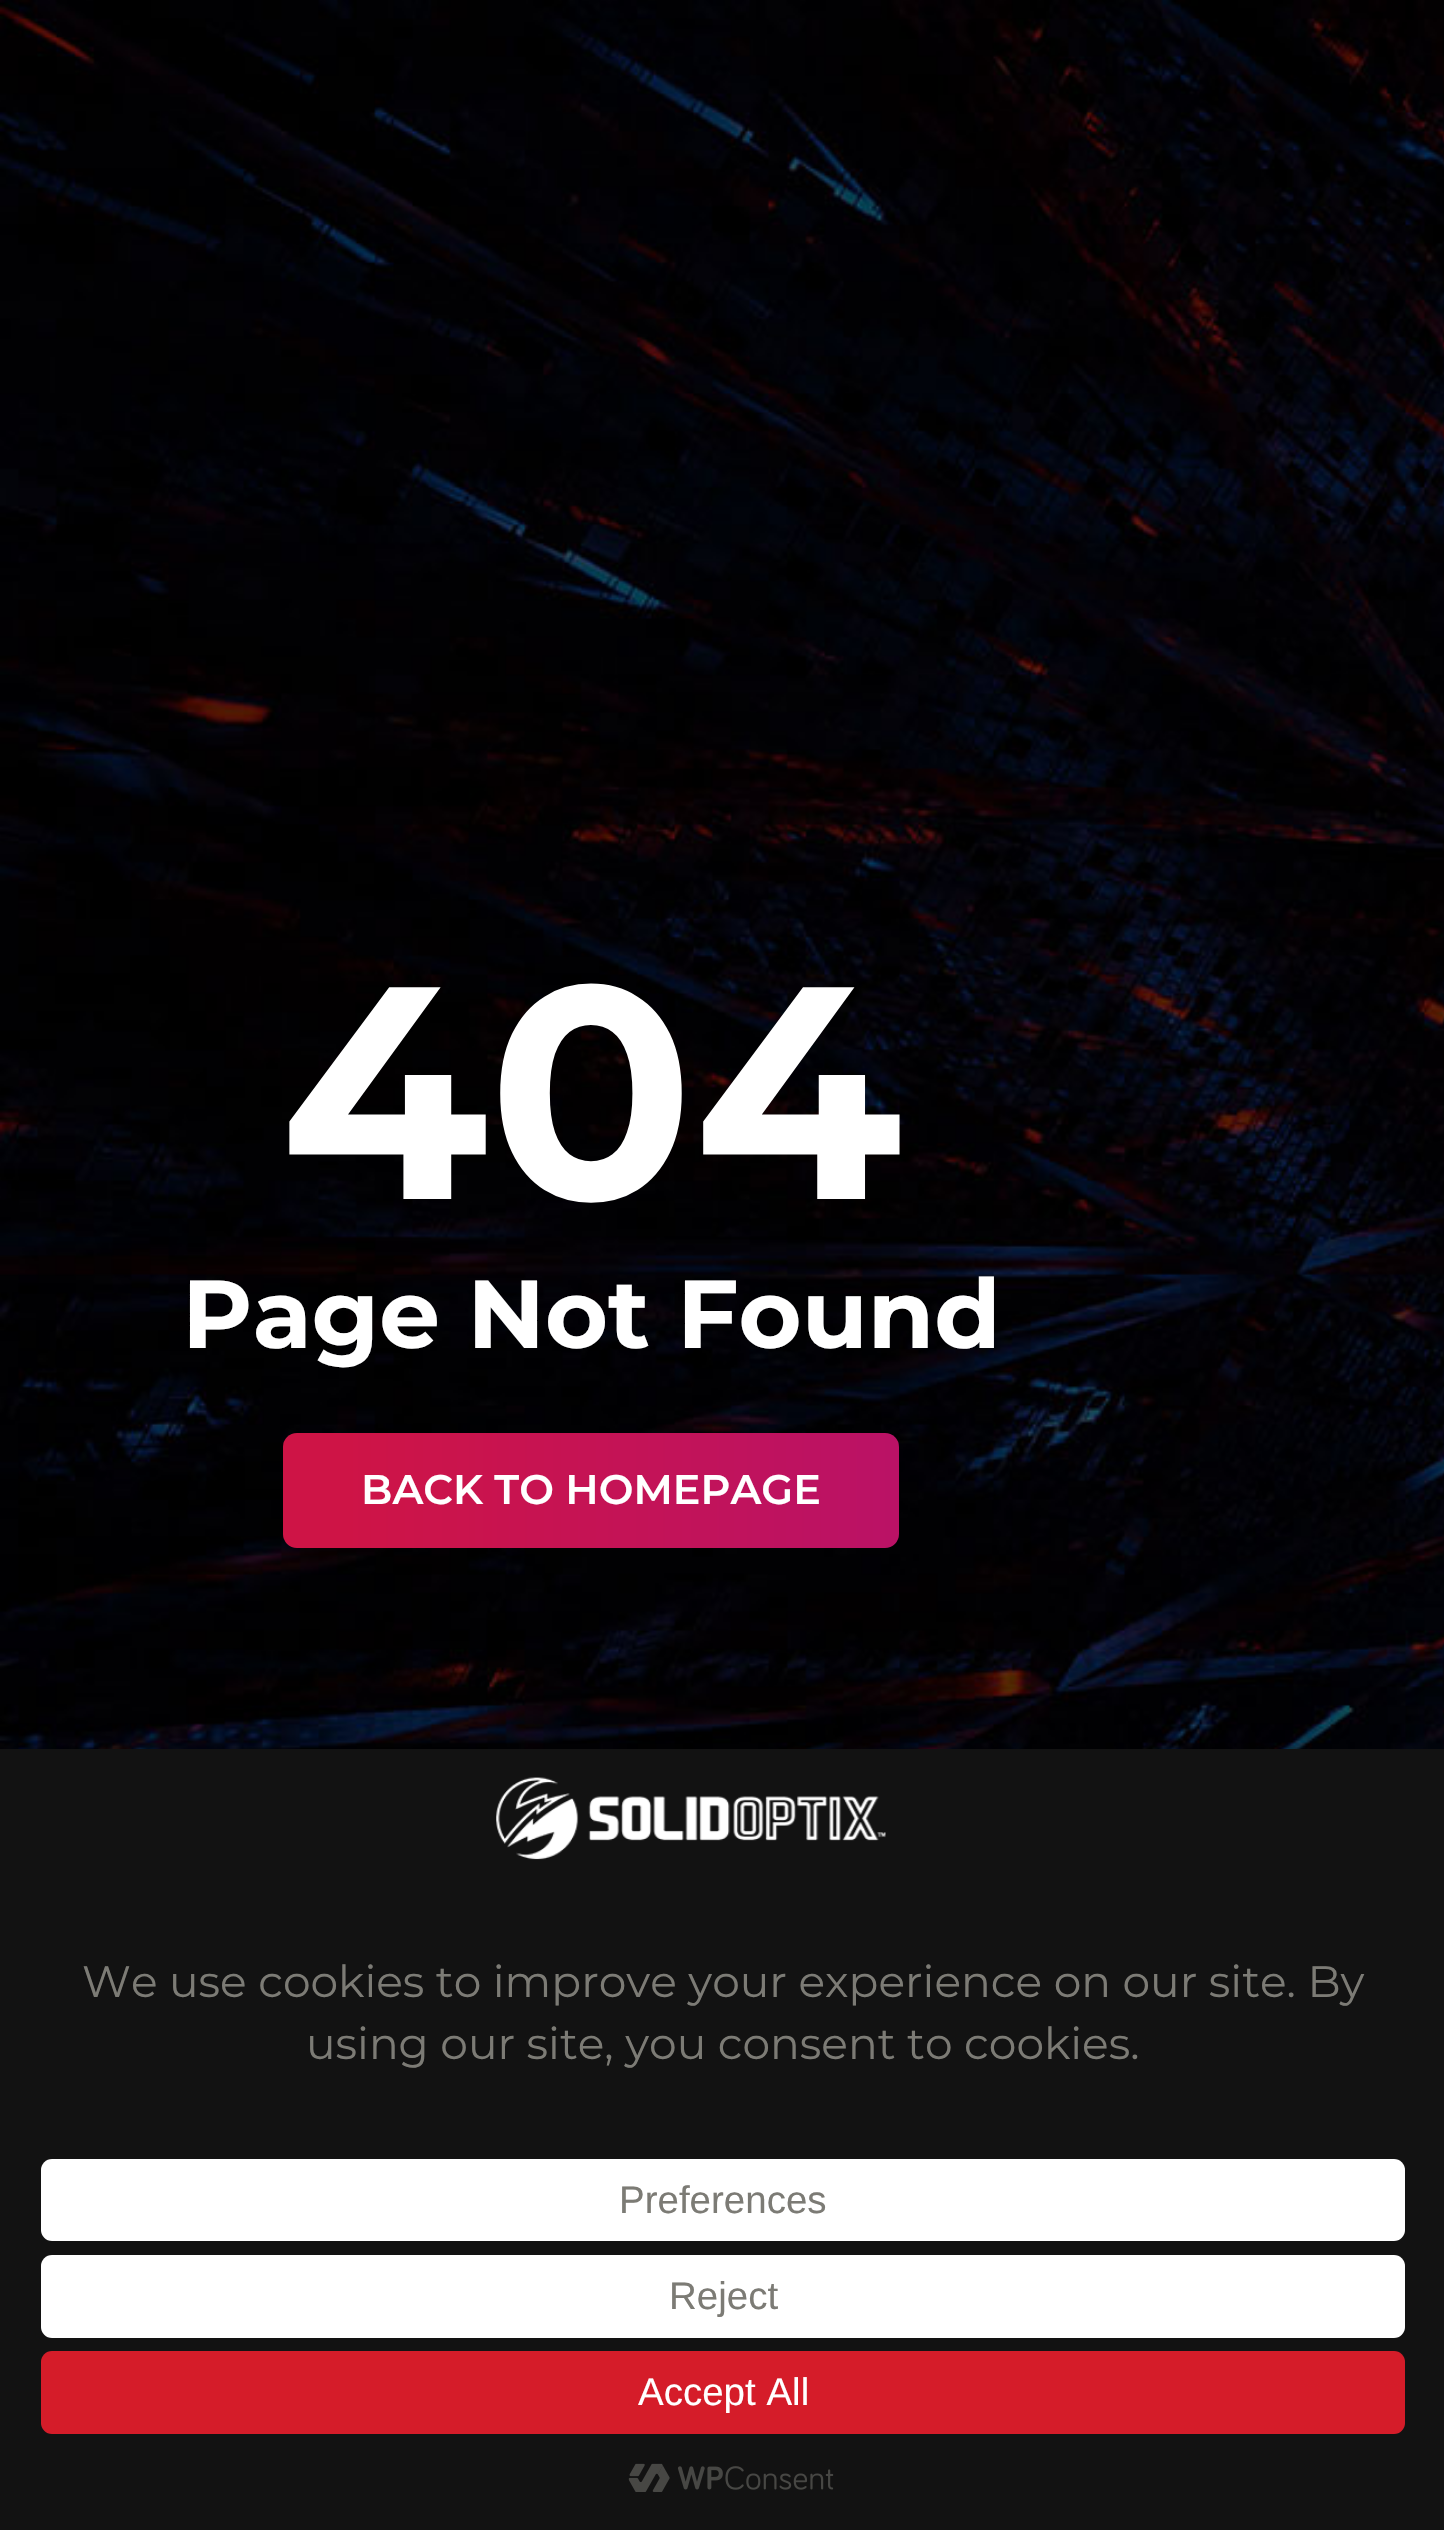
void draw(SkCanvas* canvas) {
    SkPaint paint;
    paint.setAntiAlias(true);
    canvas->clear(0xFFFFFFFF);
    canvas->drawImageRect(SkImages::DeferredFromEncodedData(SkData::MakeFromFileName("img1.png")), SkRect::MakeXYWH(0, 0, 1444, 1749), SkSamplingOptions());
    SkFont font1(fontMgr->matchFamilyStyle("Montserrat", SkFontStyle::Bold()), 302.5f);
    font1.setSubpixel(true);
    paint.setColor(0xFFFFFFFF);
    canvas->drawString("404", 280, 1199, font1, paint);
    SkFont font2(fontMgr->matchFamilyStyle("Montserrat", SkFontStyle::Bold()), 96.25f);
    font2.setSubpixel(true);
    canvas->drawString("Page Not Found", 182, 1348, font2, paint);
    {
        const SkColor colors[] = {0xFFCE1446, 0xFFBA1266};
        const float stops[] = {0.1f, 1};
        const SkPoint ends[] = {{283, 1491}, {899, 1491}};
        paint.setShader(SkGradientShader::MakeLinear(ends, colors, stops, 2, SkTileMode::kClamp));
        paint.setAlpha(255);
    }
    canvas->drawRoundRect(SkRect::MakeXYWH(283, 1433, 616, 115), 14, 14, paint);
    SkFont font3(fontMgr->matchFamilyStyle("Montserrat", SkFontStyle(600, SkFontStyle::kNormal_Width, SkFontStyle::kUpright_Slant)), 41.25f);
    font3.setSubpixel(true);
    paint.setShader(nullptr);
    paint.setColor(0xFFFFFFFF);
    canvas->drawString("BACK TO HOMEPAGE", 361, 1504, font3, paint);
    paint.setColor(0xFF121212);
    canvas->drawRect(SkRect::MakeXYWH(0, 1749, 1444, 781), paint);
    canvas->drawImageRect(SkImages::DeferredFromEncodedData(SkData::MakeFromFileName("img2.png")), SkRect::MakeXYWH(496, 1777, 390, 83), SkSamplingOptions());
    SkFont font4(fontMgr->matchFamilyStyle("Montserrat", SkFontStyle::Normal()), 44);
    font4.setSubpixel(true);
    paint.setColor(0xFF7C7B75);
    canvas->drawString("We use cookies to improve your experience on our site. By", 82, 1997, font4, paint);
    canvas->drawString("using our site, you consent to cookies.", 306, 2059, font4, paint);
    paint.setColor(0xFFFFFFFF);
    canvas->drawRoundRect(SkRect::MakeXYWH(41, 2159, 1364, 82), 11, 11, paint);
    SkFont font5(fontMgr->matchFamilyStyle("Liberation Sans", SkFontStyle::Normal()), 38.5f);
    font5.setSubpixel(true);
    paint.setColor(0xFF7C7B75);
    canvas->drawString("Preferences", 619, 2213, font5, paint);
    paint.setColor(0xFFFFFFFF);
    canvas->drawRoundRect(SkRect::MakeXYWH(41, 2255, 1364, 83), 11, 11, paint);
    paint.setColor(0xFF7C7B75);
    canvas->drawString("Reject", 669, 2309, font5, paint);
    paint.setColor(0xFFD51C29);
    canvas->drawRoundRect(SkRect::MakeXYWH(41, 2351, 1364, 83), 11, 11, paint);
    paint.setColor(0xFFFFFFFF);
    canvas->drawString("Accept All", 638, 2405, font5, paint);
    canvas->drawImageRect(SkImages::DeferredFromEncodedData(SkData::MakeFromFileName("img3.png")), SkRect::MakeXYWH(628, 2463, 206, 29), SkSamplingOptions());
}
